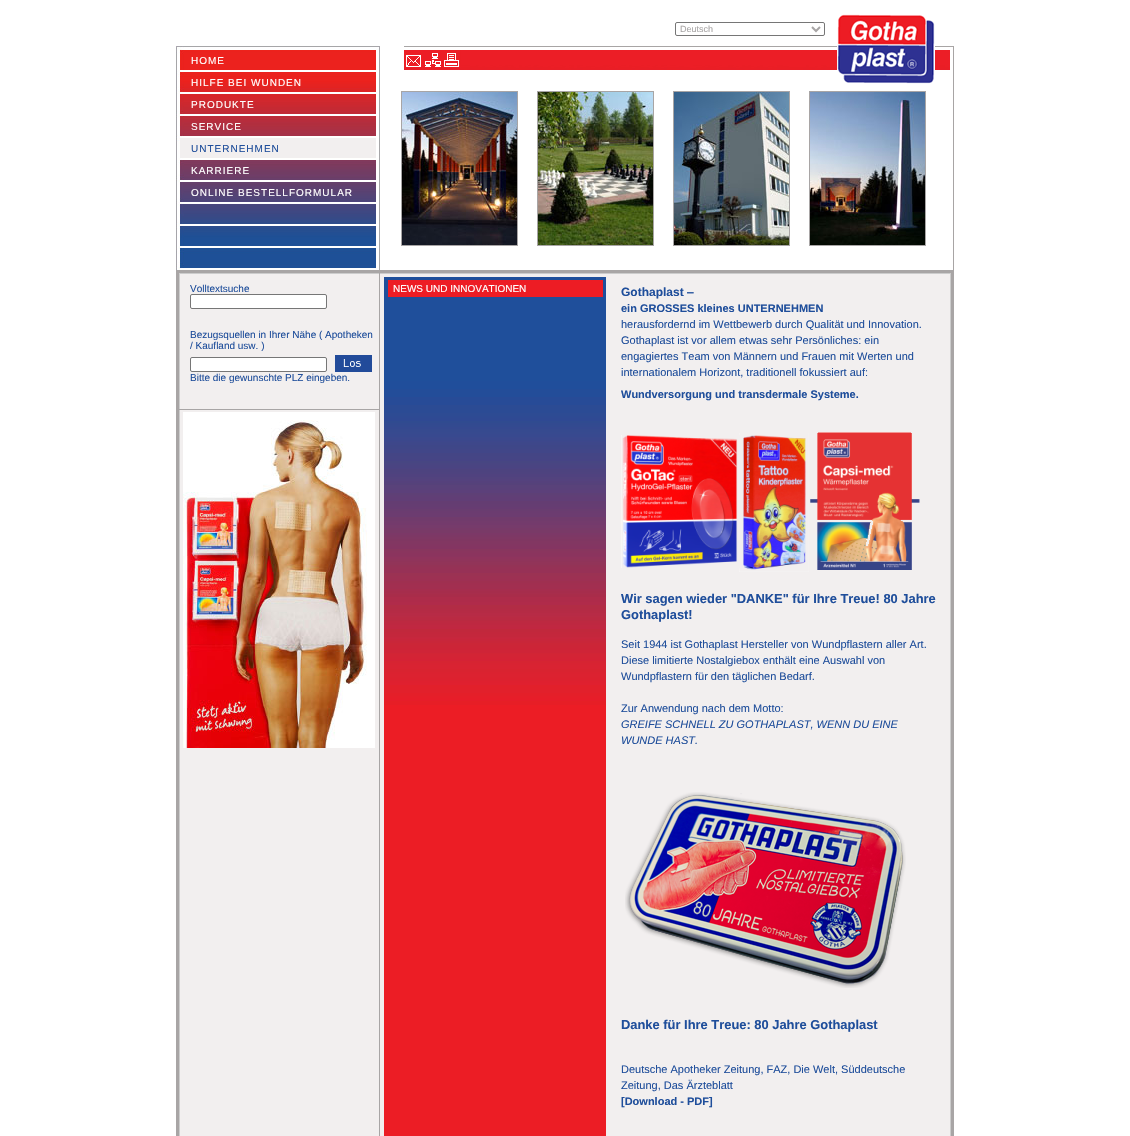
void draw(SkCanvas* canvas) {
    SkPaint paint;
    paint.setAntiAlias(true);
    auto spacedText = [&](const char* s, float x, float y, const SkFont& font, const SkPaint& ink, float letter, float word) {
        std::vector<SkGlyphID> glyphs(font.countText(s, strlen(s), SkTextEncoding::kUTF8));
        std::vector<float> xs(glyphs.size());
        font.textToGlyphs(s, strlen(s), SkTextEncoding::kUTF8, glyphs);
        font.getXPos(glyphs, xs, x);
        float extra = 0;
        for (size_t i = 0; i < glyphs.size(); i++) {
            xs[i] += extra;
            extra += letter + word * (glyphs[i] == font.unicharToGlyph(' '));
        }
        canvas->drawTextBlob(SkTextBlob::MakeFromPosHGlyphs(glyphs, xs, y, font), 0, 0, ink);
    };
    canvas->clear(0xFFFFFFFF);
    paint.setStyle(SkPaint::kStroke_Style);
    paint.setStrokeWidth(1);
    paint.setColor(0xFF767676);
    canvas->drawRoundRect(SkRect::MakeXYWH(675.5f, 22.5f, 149, 13), 1.5f, 1.5f, paint);
    paint.setStrokeWidth(2);
    paint.setColor(0xFFA8A5A5);
    canvas->drawPath(SkPathBuilder().moveTo(812, 27).lineTo(816, 31).lineTo(820, 27).detach(), paint);
    SkFont font1(fontMgr->matchFamilyStyle("Liberation Sans", SkFontStyle::Normal()), 9);
    font1.setSubpixel(true);
    paint.setStyle(SkPaint::kFill_Style);
    canvas->drawString("Deutsch", 680, 32, font1, paint);
    canvas->drawImageRect(SkImages::DeferredFromEncodedData(SkData::MakeFromFileName("img6.png")), SkRect::MakeXYWH(461, 46, 492, 24), SkSamplingOptions());
    canvas->drawImageRect(SkImages::DeferredFromEncodedData(SkData::MakeFromFileName("img1.png")), SkRect::MakeXYWH(837, 14, 98, 70), SkSamplingOptions());
    canvas->drawImageRect(SkImages::DeferredFromEncodedData(SkData::MakeFromFileName("img2.png")), SkRect::MakeXYWH(176, 46, 204, 224), SkSamplingOptions());
    SkFont font2(fontMgr->matchFamilyStyle("Liberation Sans", SkFontStyle::Normal()), 10);
    font2.setSubpixel(true);
    paint.setColor(0xFFFFFFFF);
    spacedText("HOME", 191, 64, font2, paint, 1, 0);
    spacedText("HILFE BEI WUNDEN", 191, 86, font2, paint, 1, 0);
    spacedText("PRODUKTE", 191, 108, font2, paint, 1, 0);
    spacedText("SERVICE", 191, 130, font2, paint, 1, 0);
    paint.setColor(0xFFF2EFEF);
    canvas->drawRect(SkRect::MakeXYWH(180, 138, 196, 20), paint);
    paint.setColor(0xFF1F4E9B);
    spacedText("UNTERNEHMEN", 191, 152, font2, paint, 1, 0);
    paint.setColor(0xFFFFFFFF);
    spacedText("KARRIERE", 191, 174, font2, paint, 1, 0);
    spacedText("ONLINE BESTELLFORMULAR", 191, 196, font2, paint, 1, 0);
    paint.setColor(0xFFA8A5A5);
    canvas->drawRect(SkRect::MakeXYWH(953, 46, 1, 224), paint);
    canvas->drawImageRect(SkImages::DeferredFromEncodedData(SkData::MakeFromFileName("img3.png")), SkRect::MakeXYWH(404, 46, 19, 24), SkSamplingOptions());
    canvas->drawImageRect(SkImages::DeferredFromEncodedData(SkData::MakeFromFileName("img4.png")), SkRect::MakeXYWH(423, 46, 20, 24), SkSamplingOptions());
    canvas->drawImageRect(SkImages::DeferredFromEncodedData(SkData::MakeFromFileName("img5.png")), SkRect::MakeXYWH(443, 46, 18, 24), SkSamplingOptions());
    paint.setStyle(SkPaint::kStroke_Style);
    paint.setStrokeWidth(1);
    canvas->drawRect(SkRect::MakeXYWH(401.5f, 91.5f, 116, 154), paint);
    canvas->drawRect(SkRect::MakeXYWH(537.5f, 91.5f, 116, 154), paint);
    canvas->drawRect(SkRect::MakeXYWH(673.5f, 91.5f, 116, 154), paint);
    canvas->drawRect(SkRect::MakeXYWH(809.5f, 91.5f, 116, 154), paint);
    canvas->drawImageRect(SkImages::DeferredFromEncodedData(SkData::MakeFromFileName("img7.png")), SkRect::MakeXYWH(402, 92, 115, 153), SkSamplingOptions());
    canvas->drawImageRect(SkImages::DeferredFromEncodedData(SkData::MakeFromFileName("img8.png")), SkRect::MakeXYWH(538, 92, 115, 153), SkSamplingOptions());
    canvas->drawImageRect(SkImages::DeferredFromEncodedData(SkData::MakeFromFileName("img9.png")), SkRect::MakeXYWH(674, 92, 115, 153), SkSamplingOptions());
    canvas->drawImageRect(SkImages::DeferredFromEncodedData(SkData::MakeFromFileName("img10.png")), SkRect::MakeXYWH(810, 92, 115, 153), SkSamplingOptions());
    canvas->drawImageRect(SkImages::DeferredFromEncodedData(SkData::MakeFromFileName("img11.png")), SkRect::MakeXYWH(176, 270, 778, 7), SkSamplingOptions());
    canvas->drawImageRect(SkImages::DeferredFromEncodedData(SkData::MakeFromFileName("img12.png")), SkRect::MakeXYWH(176, 277, 778, 859), SkSamplingOptions());
    paint.setStyle(SkPaint::kFill_Style);
    paint.setColor(0xFF1F4E9B);
    canvas->drawString("Volltextsuche", 190, 292, font2, paint);
    paint.setColor(0xFFFFFFFF);
    canvas->drawRoundRect(SkRect::MakeXYWH(190.5f, 294.5f, 136, 14), 1.5f, 1.5f, paint);
    paint.setStyle(SkPaint::kStroke_Style);
    paint.setColor(0xFF767676);
    canvas->drawRoundRect(SkRect::MakeXYWH(190.5f, 294.5f, 136, 14), 1.5f, 1.5f, paint);
    paint.setStyle(SkPaint::kFill_Style);
    paint.setColor(0xFF1F4E9B);
    canvas->drawString("Bezugsquellen in Ihrer Nähe ( Apotheken", 190, 338, font2, paint);
    canvas->drawString("/ Kaufland usw. )", 190, 349, font2, paint);
    paint.setColor(0xFFFFFFFF);
    canvas->drawRoundRect(SkRect::MakeXYWH(190.5f, 357.5f, 136, 14), 1.5f, 1.5f, paint);
    paint.setStyle(SkPaint::kStroke_Style);
    paint.setColor(0xFF767676);
    canvas->drawRoundRect(SkRect::MakeXYWH(190.5f, 357.5f, 136, 14), 1.5f, 1.5f, paint);
    canvas->drawImageRect(SkImages::DeferredFromEncodedData(SkData::MakeFromFileName("img13.png")), SkRect::MakeXYWH(335, 355, 37, 17), SkSamplingOptions());
    paint.setStyle(SkPaint::kFill_Style);
    paint.setColor(0xFF1F4E9B);
    canvas->drawString("Bitte die gewunschte PLZ eingeben.", 190, 381, font2, paint);
    paint.setColor(0xFFA8A5A5);
    canvas->drawRect(SkRect::MakeXYWH(179, 409, 200, 1), paint);
    canvas->drawImageRect(SkImages::DeferredFromEncodedData(SkData::MakeFromFileName("img14.png")), SkRect::MakeXYWH(183, 412, 192, 336), SkSamplingOptions());
    canvas->drawImageRect(SkImages::DeferredFromEncodedData(SkData::MakeFromFileName("img15.png")), SkRect::MakeXYWH(384, 277, 222, 428), SkSamplingOptions());
    paint.setColor(0xFFED1C24);
    canvas->drawRect(SkRect::MakeXYWH(388, 280, 215, 17), paint);
    paint.setColor(0xFFFFFFFF);
    canvas->drawString("NEWS UND INNOVATIONEN", 393, 292, font2, paint);
    SkFont font3(fontMgr->matchFamilyStyle("Liberation Sans", SkFontStyle::Bold()), 12);
    font3.setSubpixel(true);
    paint.setColor(0xFF1F4E9B);
    canvas->drawString("Gothaplast ‒", 621, 296, font3, paint);
    SkFont font4(fontMgr->matchFamilyStyle("Liberation Sans", SkFontStyle::Bold()), 11);
    font4.setSubpixel(true);
    canvas->drawString("ein GROSSES kleines UNTERNEHMEN", 621, 312, font4, paint);
    SkFont font5(fontMgr->matchFamilyStyle("Liberation Sans", SkFontStyle::Normal()), 11);
    font5.setSubpixel(true);
    canvas->drawString("herausfordernd im Wettbewerb durch Qualität und Innovation.", 621, 328, font5, paint);
    canvas->drawString("Gothaplast ist vor allem etwas sehr Persönliches: ein", 621, 344, font5, paint);
    canvas->drawString("engagiertes Team von Männern und Frauen mit Werten und", 621, 360, font5, paint);
    canvas->drawString("internationalem Horizont, traditionell fokussiert auf:", 621, 376, font5, paint);
    canvas->drawString("Wundversorgung und transdermale Systeme.", 621, 398, font4, paint);
    canvas->drawImageRect(SkImages::DeferredFromEncodedData(SkData::MakeFromFileName("img16.png")), SkRect::MakeXYWH(621, 432, 299, 140), SkSamplingOptions());
    SkFont font6(fontMgr->matchFamilyStyle("Liberation Sans", SkFontStyle::Bold()), 12.9f);
    font6.setSubpixel(true);
    canvas->drawString("Wir sagen wieder \"DANKE\" für Ihre Treue! 80 Jahre", 621, 603, font6, paint);
    canvas->drawString("Gothaplast!", 621, 619, font6, paint);
    canvas->drawString("Seit 1944 ist Gothaplast Hersteller von Wundpflastern aller Art.", 621, 648, font5, paint);
    canvas->drawString("Diese limitierte Nostalgiebox enthält eine Auswahl von", 621, 664, font5, paint);
    canvas->drawString("Wundpflastern für den täglichen Bedarf.", 621, 680, font5, paint);
    canvas->drawString("Zur Anwendung nach dem Motto:", 621, 712, font5, paint);
    SkFont font7(fontMgr->matchFamilyStyle("Liberation Sans", SkFontStyle::Italic()), 11);
    font7.setSubpixel(true);
    canvas->drawString("GREIFE SCHNELL ZU GOTHAPLAST, WENN DU EINE", 621, 728, font7, paint);
    canvas->drawString("WUNDE HAST.", 621, 744, font7, paint);
    canvas->drawImageRect(SkImages::DeferredFromEncodedData(SkData::MakeFromFileName("img17.png")), SkRect::MakeXYWH(625, 792, 281, 196), SkSamplingOptions());
    canvas->drawString("Danke für Ihre Treue: 80 Jahre Gothaplast", 621, 1029, font6, paint);
    canvas->drawString("Deutsche Apotheker Zeitung, FAZ, Die Welt, Süddeutsche", 621, 1073, font5, paint);
    canvas->drawString("Zeitung, Das Ärzteblatt", 621, 1089, font5, paint);
    canvas->drawString("[Download - PDF]", 621, 1105, font4, paint);
}
